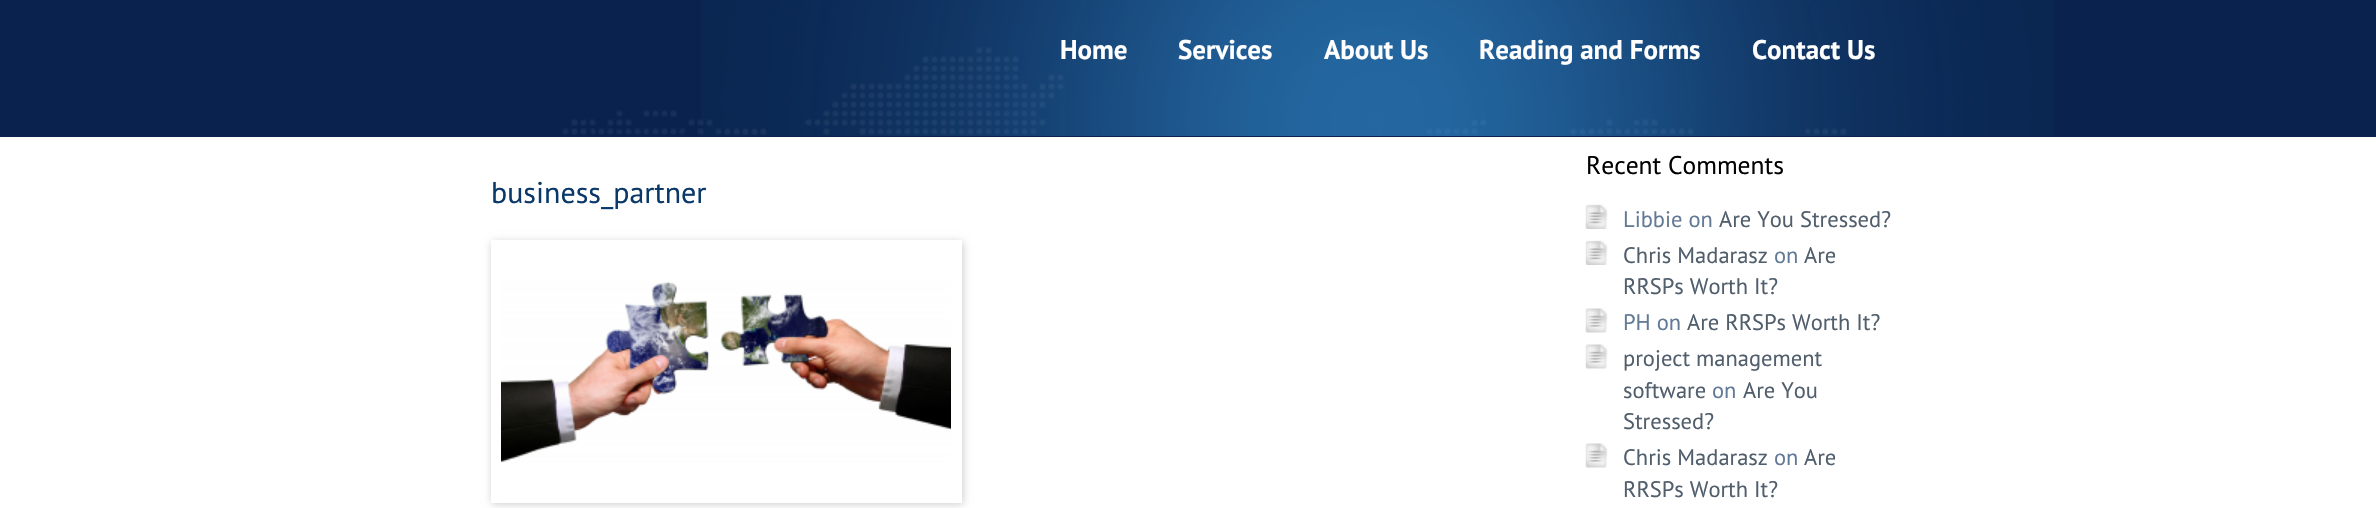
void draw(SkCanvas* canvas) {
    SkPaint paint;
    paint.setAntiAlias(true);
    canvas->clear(0xFF09234E);
    canvas->drawImageRect(SkImages::DeferredFromEncodedData(SkData::MakeFromFileName("img1.png")), SkRect::MakeXYWH(562, 47, 1285, 88), SkSamplingOptions());
    canvas->drawImageRect(SkImages::DeferredFromEncodedData(SkData::MakeFromFileName("img2.png")), SkRect::MakeXYWH(701, 0, 1353, 136), SkSamplingOptions());
    SkFont font1(fontMgr->matchFamilyStyle("PT Sans", SkFontStyle::Bold()), 27);
    font1.setSubpixel(true);
    paint.setColor(0xFFFFFFFF);
    canvas->drawString("Home", 1060, 59, font1, paint);
    canvas->drawString("Services", 1178, 59, font1, paint);
    canvas->drawString("About Us", 1324, 59, font1, paint);
    canvas->drawString("Reading and Forms", 1479, 59, font1, paint);
    canvas->drawString("Contact Us", 1752, 59, font1, paint);
    canvas->drawRect(SkRect::MakeXYWH(0, 137, 2376, 371), paint);
    SkFont font2(fontMgr->matchFamilyStyle("PT Sans", SkFontStyle::Normal()), 30);
    font2.setSubpixel(true);
    paint.setColor(0xFF093869);
    canvas->drawString("business_partner", 491, 203, font2, paint);
    canvas->save();
    canvas->clipPath(SkPathBuilder(SkPathFillType::kEvenOdd).moveTo(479, 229).lineTo(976, 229).lineTo(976, 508).lineTo(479, 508).close().moveTo(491, 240).lineTo(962, 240).lineTo(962, 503).lineTo(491, 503).close().detach(), true);
    paint.setColor(0xFFCCCCCC);
    paint.setMaskFilter(SkMaskFilter::MakeBlur(kNormal_SkBlurStyle, 4));
    canvas->drawRect(SkRect::MakeXYWH(492, 242, 471, 262), paint);
    paint.setMaskFilter(nullptr);
    canvas->restore();
    canvas->drawImageRect(SkImages::DeferredFromEncodedData(SkData::MakeFromFileName("img3.png")), SkRect::MakeXYWH(501, 281, 450, 182), SkSamplingOptions());
    SkFont font3(fontMgr->matchFamilyStyle("PT Sans", SkFontStyle::Normal()), 25.5f);
    font3.setSubpixel(true);
    paint.setColor(0xFF000000);
    canvas->drawString("Recent Comments", 1586, 174, font3, paint);
    canvas->drawImageRect(SkImages::DeferredFromEncodedData(SkData::MakeFromFileName("img4.png")), SkRect::MakeXYWH(1585, 204, 23, 25), SkSamplingOptions());
    SkFont font4(fontMgr->matchFamilyStyle("PT Sans", SkFontStyle::Normal()), 22.5f);
    font4.setSubpixel(true);
    paint.setColor(0xFF637A96);
    canvas->drawString("Libbie on", 1623, 227, font4, paint);
    paint.setColor(0xFF515E6C);
    canvas->drawString("Are You Stressed?", 1719, 227, font4, paint);
    canvas->drawImageRect(SkImages::DeferredFromEncodedData(SkData::MakeFromFileName("img4.png")), SkRect::MakeXYWH(1585, 240, 23, 25), SkSamplingOptions());
    canvas->drawString("Chris Madarasz", 1623, 263, font4, paint);
    paint.setColor(0xFF637A96);
    canvas->drawString("on", 1774, 263, font4, paint);
    paint.setColor(0xFF515E6C);
    canvas->drawString("Are", 1804, 263, font4, paint);
    canvas->drawString("RRSPs Worth It?", 1623, 294, font4, paint);
    canvas->drawImageRect(SkImages::DeferredFromEncodedData(SkData::MakeFromFileName("img5.png")), SkRect::MakeXYWH(1585, 308, 23, 25), SkSamplingOptions());
    paint.setColor(0xFF637A96);
    canvas->drawString("PH on", 1623, 330, font4, paint);
    paint.setColor(0xFF515E6C);
    canvas->drawString("Are RRSPs Worth It?", 1687, 330, font4, paint);
    canvas->drawImageRect(SkImages::DeferredFromEncodedData(SkData::MakeFromFileName("img5.png")), SkRect::MakeXYWH(1585, 344, 23, 25), SkSamplingOptions());
    canvas->drawString("project management", 1623, 366, font4, paint);
    canvas->drawString("software", 1623, 398, font4, paint);
    paint.setColor(0xFF637A96);
    canvas->drawString("on", 1712, 398, font4, paint);
    paint.setColor(0xFF515E6C);
    canvas->drawString("Are You", 1743, 398, font4, paint);
    canvas->drawString("Stressed?", 1623, 429, font4, paint);
    canvas->drawImageRect(SkImages::DeferredFromEncodedData(SkData::MakeFromFileName("img5.png")), SkRect::MakeXYWH(1585, 443, 23, 25), SkSamplingOptions());
    canvas->drawString("Chris Madarasz", 1623, 465, font4, paint);
    paint.setColor(0xFF637A96);
    canvas->drawString("on", 1774, 465, font4, paint);
    paint.setColor(0xFF515E6C);
    canvas->drawString("Are", 1804, 465, font4, paint);
    canvas->drawString("RRSPs Worth It?", 1623, 497, font4, paint);
}
